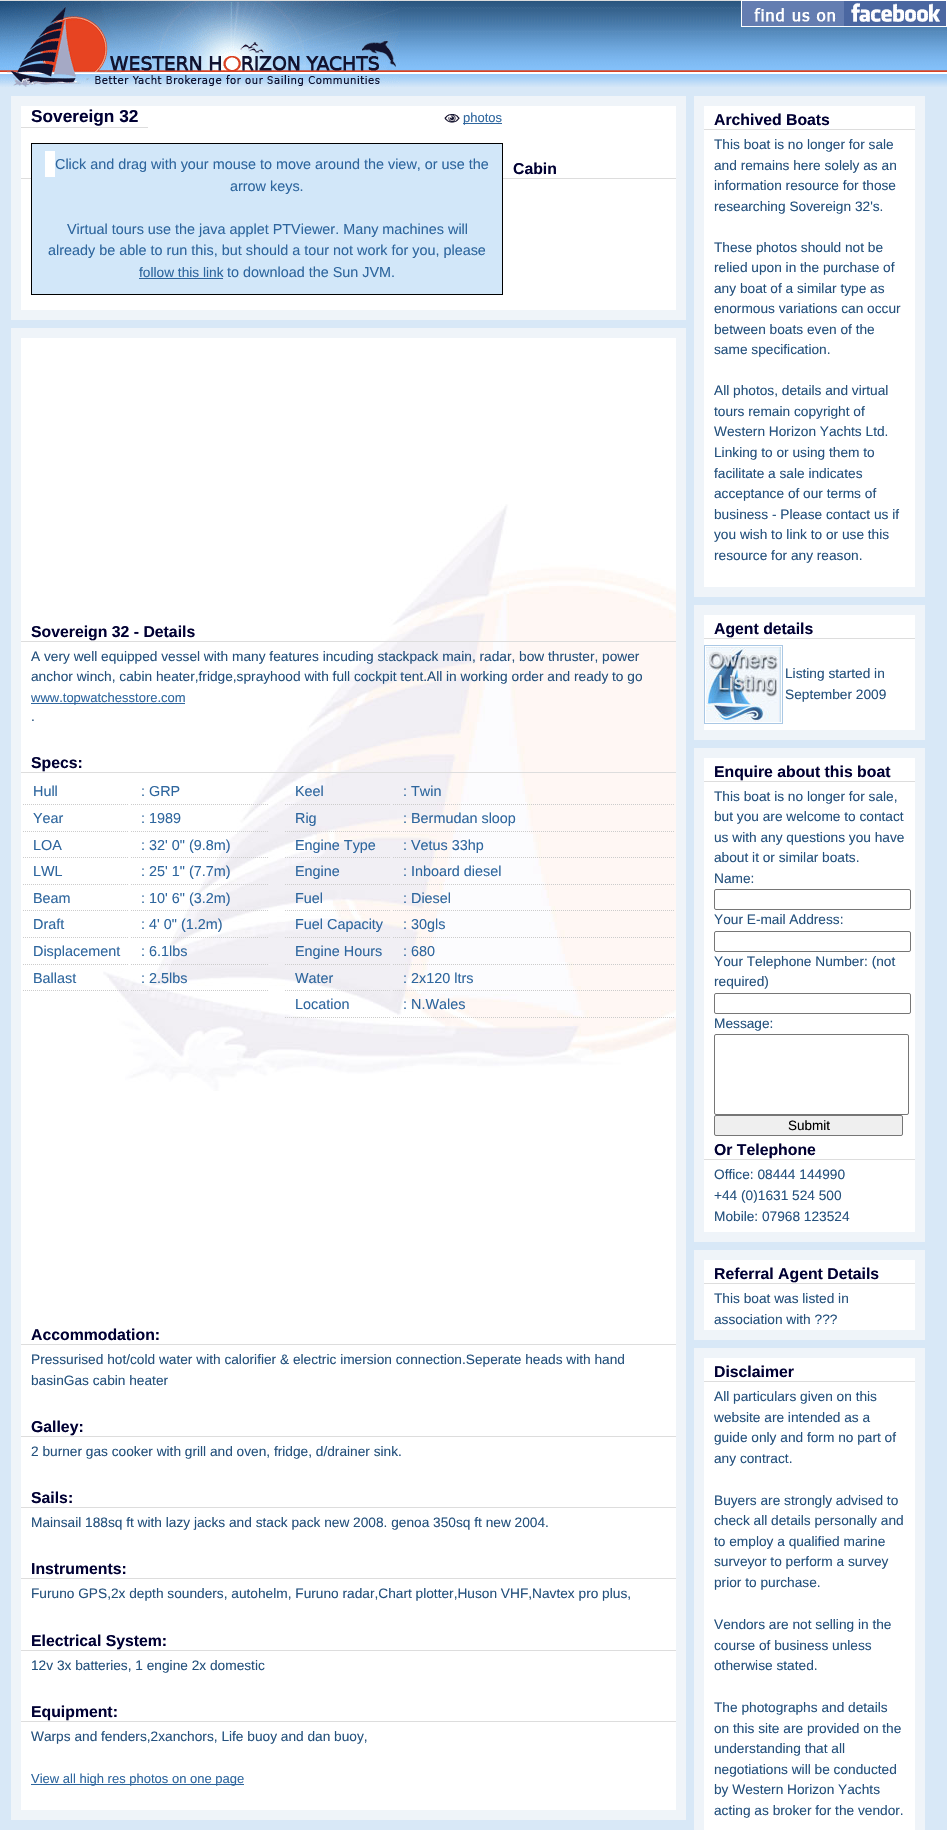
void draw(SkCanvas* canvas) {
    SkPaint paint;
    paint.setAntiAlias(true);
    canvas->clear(0xFFD8E8F7);
    canvas->drawImageRect(SkImages::DeferredFromEncodedData(SkData::MakeFromFileName("img1.png")), SkRect::MakeXYWH(400, 1, 547, 86), SkSamplingOptions());
    canvas->drawImageRect(SkImages::DeferredFromEncodedData(SkData::MakeFromFileName("img2.png")), SkRect::MakeXYWH(0, 1, 400, 86), SkSamplingOptions());
    canvas->drawImageRect(SkImages::DeferredFromEncodedData(SkData::MakeFromFileName("img3.png")), SkRect::MakeXYWH(741, 0, 206, 27), SkSamplingOptions());
    paint.setColor(0xFFDDDDDD);
    canvas->drawRect(SkRect::MakeXYWH(0, 0, 741, 1), paint);
    paint.setColor(0xFFFFFFFF);
    canvas->drawRect(SkRect::MakeXYWH(16, 101, 665, 214), paint);
    paint.setStyle(SkPaint::kStroke_Style);
    paint.setStrokeWidth(10);
    paint.setColor(0xFFEFF4F9);
    canvas->drawRect(SkRect::MakeXYWH(16, 101, 665, 214), paint);
    paint.setStyle(SkPaint::kFill_Style);
    paint.setColor(0xFFDDDDDD);
    canvas->drawRect(SkRect::MakeXYWH(21, 127, 127, 1), paint);
    SkFont font1(fontMgr->matchFamilyStyle("Liberation Sans", SkFontStyle::Bold()), 17.25f);
    font1.setSubpixel(true);
    paint.setColor(0xFF000033);
    canvas->drawString("Sovereign 32", 31, 122, font1, paint);
    canvas->drawImageRect(SkImages::DeferredFromEncodedData(SkData::MakeFromFileName("img4.png")), SkRect::MakeXYWH(444, 114, 16, 9), SkSamplingOptions());
    paint.setColor(0xFF2E669E);
    canvas->drawRect(SkRect::MakeXYWH(463, 123, 39, 1), paint);
    SkFont font2(fontMgr->matchFamilyStyle("Liberation Sans", SkFontStyle::Normal()), 13);
    font2.setSubpixel(true);
    canvas->drawString("photos", 463, 122, font2, paint);
    paint.setColor(0xFFDDDDDD);
    canvas->drawRect(SkRect::MakeXYWH(21, 178, 655, 1), paint);
    paint.setColor(0xFFD2E7F9);
    canvas->drawRect(SkRect::MakeXYWH(31.5f, 143.5f, 471, 151), paint);
    paint.setStyle(SkPaint::kStroke_Style);
    paint.setStrokeWidth(1);
    paint.setColor(0xFF000000);
    canvas->drawRect(SkRect::MakeXYWH(31.5f, 143.5f, 471, 151), paint);
    paint.setStyle(SkPaint::kFill_Style);
    paint.setColor(0xFFFFFFFF);
    canvas->drawRect(SkRect::MakeXYWH(45, 151, 10, 26), paint);
    SkFont font3(fontMgr->matchFamilyStyle("Liberation Sans", SkFontStyle::Normal()), 14.4f);
    font3.setSubpixel(true);
    paint.setColor(0xFF2E669E);
    canvas->drawString("Click and drag with your mouse to move around the view, or use the", 55, 169, font3, paint);
    canvas->drawString("arrow keys.", 230, 191, font3, paint);
    canvas->drawString("Virtual tours use the java applet PTViewer. Many machines will", 67, 234, font3, paint);
    canvas->drawString("already be able to run this, but should a tour not work for you, please", 48, 255, font3, paint);
    SkFont font4(fontMgr->matchFamilyStyle("Liberation Sans", SkFontStyle::Normal()), 13.7f);
    font4.setSubpixel(true);
    canvas->drawString("follow this link", 139, 277, font4, paint);
    canvas->drawRect(SkRect::MakeXYWH(139, 278, 84, 1), paint);
    canvas->drawString("to download the Sun JVM.", 227, 277, font3, paint);
    SkFont font5(fontMgr->matchFamilyStyle("Liberation Sans", SkFontStyle::Bold()), 15.8f);
    font5.setSubpixel(true);
    paint.setColor(0xFF000033);
    canvas->drawString("Cabin", 513, 174, font5, paint);
    paint.setColor(0xFFFFFFFF);
    canvas->drawRect(SkRect::MakeXYWH(21, 338, 655, 1472), paint);
    canvas->drawImageRect(SkImages::DeferredFromEncodedData(SkData::MakeFromFileName("img5.png")), SkRect::MakeXYWH(103, 504, 573, 587), SkSamplingOptions());
    paint.setStyle(SkPaint::kStroke_Style);
    paint.setStrokeWidth(10);
    paint.setColor(0xFFEFF4F9);
    canvas->drawRect(SkRect::MakeXYWH(16, 333, 665, 1482), paint);
    paint.setStyle(SkPaint::kFill_Style);
    paint.setColor(0xFFDDDDDD);
    canvas->drawRect(SkRect::MakeXYWH(21, 641, 655, 1), paint);
    paint.setColor(0xFF000033);
    canvas->drawString("Sovereign 32 - Details", 31, 637, font5, paint);
    paint.setColor(0xFF24517D);
    canvas->drawString("A very well equipped vessel with many features incuding stackpack main, radar, bow thruster, power", 31, 661, font4, paint);
    canvas->drawString("anchor winch, cabin heater,fridge,sprayhood with full cockpit tent.All in working order and ready to go", 31, 681, font4, paint);
    paint.setColor(0xFF2E669E);
    canvas->drawRect(SkRect::MakeXYWH(31, 703, 154, 1), paint);
    canvas->drawString("www.topwatchesstore.com", 31, 702, font2, paint);
    paint.setColor(0xFF24517D);
    canvas->drawString(".", 31, 721, font4, paint);
    paint.setColor(0xFFDDDDDD);
    canvas->drawRect(SkRect::MakeXYWH(21, 772, 655, 1), paint);
    paint.setColor(0xFF000033);
    canvas->drawString("Specs:", 31, 768, font5, paint);
    paint.setStyle(SkPaint::kStroke_Style);
    paint.setStrokeWidth(1);
    paint.setColor(0xFFCCCCCC);
    paint.setPathEffect(SkDashPathEffect::Make({{1, 1}}, 0));
    canvas->drawPath(SkPathBuilder().moveTo(23, 804.5f).lineTo(129, 804.5f).detach(), paint);
    paint.setPathEffect(nullptr);
    paint.setStyle(SkPaint::kFill_Style);
    paint.setColor(0xFF2E669E);
    canvas->drawString("Hull", 33, 796, font3, paint);
    paint.setStyle(SkPaint::kStroke_Style);
    paint.setColor(0xFFCCCCCC);
    paint.setPathEffect(SkDashPathEffect::Make({{1, 1}}, 0));
    canvas->drawPath(SkPathBuilder().moveTo(131, 804.5f).lineTo(268, 804.5f).detach(), paint);
    paint.setPathEffect(nullptr);
    paint.setStyle(SkPaint::kFill_Style);
    paint.setColor(0xFF2E669E);
    canvas->drawString(": GRP", 141, 796, font3, paint);
    paint.setStyle(SkPaint::kStroke_Style);
    paint.setColor(0xFFCCCCCC);
    paint.setPathEffect(SkDashPathEffect::Make({{1, 1}}, 0));
    canvas->drawPath(SkPathBuilder().moveTo(23, 831.5f).lineTo(129, 831.5f).detach(), paint);
    paint.setPathEffect(nullptr);
    paint.setStyle(SkPaint::kFill_Style);
    paint.setColor(0xFF2E669E);
    canvas->drawString("Year", 33, 823, font3, paint);
    paint.setStyle(SkPaint::kStroke_Style);
    paint.setColor(0xFFCCCCCC);
    paint.setPathEffect(SkDashPathEffect::Make({{1, 1}}, 0));
    canvas->drawPath(SkPathBuilder().moveTo(131, 831.5f).lineTo(268, 831.5f).detach(), paint);
    paint.setPathEffect(nullptr);
    paint.setStyle(SkPaint::kFill_Style);
    paint.setColor(0xFF2E669E);
    canvas->drawString(": 1989", 141, 823, font3, paint);
    paint.setStyle(SkPaint::kStroke_Style);
    paint.setColor(0xFFCCCCCC);
    paint.setPathEffect(SkDashPathEffect::Make({{1, 1}}, 0));
    canvas->drawPath(SkPathBuilder().moveTo(23, 857.5f).lineTo(129, 857.5f).detach(), paint);
    paint.setPathEffect(nullptr);
    paint.setStyle(SkPaint::kFill_Style);
    paint.setColor(0xFF2E669E);
    canvas->drawString("LOA", 33, 850, font3, paint);
    paint.setStyle(SkPaint::kStroke_Style);
    paint.setColor(0xFFCCCCCC);
    paint.setPathEffect(SkDashPathEffect::Make({{1, 1}}, 0));
    canvas->drawPath(SkPathBuilder().moveTo(131, 857.5f).lineTo(268, 857.5f).detach(), paint);
    paint.setPathEffect(nullptr);
    paint.setStyle(SkPaint::kFill_Style);
    paint.setColor(0xFF2E669E);
    canvas->drawString(": 32' 0\" (9.8m)", 141, 850, font3, paint);
    paint.setStyle(SkPaint::kStroke_Style);
    paint.setColor(0xFFCCCCCC);
    paint.setPathEffect(SkDashPathEffect::Make({{1, 1}}, 0));
    canvas->drawPath(SkPathBuilder().moveTo(23, 884.5f).lineTo(129, 884.5f).detach(), paint);
    paint.setPathEffect(nullptr);
    paint.setStyle(SkPaint::kFill_Style);
    paint.setColor(0xFF2E669E);
    canvas->drawString("LWL", 33, 876, font3, paint);
    paint.setStyle(SkPaint::kStroke_Style);
    paint.setColor(0xFFCCCCCC);
    paint.setPathEffect(SkDashPathEffect::Make({{1, 1}}, 0));
    canvas->drawPath(SkPathBuilder().moveTo(131, 884.5f).lineTo(268, 884.5f).detach(), paint);
    paint.setPathEffect(nullptr);
    paint.setStyle(SkPaint::kFill_Style);
    paint.setColor(0xFF2E669E);
    canvas->drawString(": 25' 1\" (7.7m)", 141, 876, font3, paint);
    paint.setStyle(SkPaint::kStroke_Style);
    paint.setColor(0xFFCCCCCC);
    paint.setPathEffect(SkDashPathEffect::Make({{1, 1}}, 0));
    canvas->drawPath(SkPathBuilder().moveTo(23, 910.5f).lineTo(129, 910.5f).detach(), paint);
    paint.setPathEffect(nullptr);
    paint.setStyle(SkPaint::kFill_Style);
    paint.setColor(0xFF2E669E);
    canvas->drawString("Beam", 33, 903, font3, paint);
    paint.setStyle(SkPaint::kStroke_Style);
    paint.setColor(0xFFCCCCCC);
    paint.setPathEffect(SkDashPathEffect::Make({{1, 1}}, 0));
    canvas->drawPath(SkPathBuilder().moveTo(131, 910.5f).lineTo(268, 910.5f).detach(), paint);
    paint.setPathEffect(nullptr);
    paint.setStyle(SkPaint::kFill_Style);
    paint.setColor(0xFF2E669E);
    canvas->drawString(": 10' 6\" (3.2m)", 141, 903, font3, paint);
    paint.setStyle(SkPaint::kStroke_Style);
    paint.setColor(0xFFCCCCCC);
    paint.setPathEffect(SkDashPathEffect::Make({{1, 1}}, 0));
    canvas->drawPath(SkPathBuilder().moveTo(23, 937.5f).lineTo(129, 937.5f).detach(), paint);
    paint.setPathEffect(nullptr);
    paint.setStyle(SkPaint::kFill_Style);
    paint.setColor(0xFF2E669E);
    canvas->drawString("Draft", 33, 929, font3, paint);
    paint.setStyle(SkPaint::kStroke_Style);
    paint.setColor(0xFFCCCCCC);
    paint.setPathEffect(SkDashPathEffect::Make({{1, 1}}, 0));
    canvas->drawPath(SkPathBuilder().moveTo(131, 937.5f).lineTo(268, 937.5f).detach(), paint);
    paint.setPathEffect(nullptr);
    paint.setStyle(SkPaint::kFill_Style);
    paint.setColor(0xFF2E669E);
    canvas->drawString(": 4' 0\" (1.2m)", 141, 929, font3, paint);
    paint.setStyle(SkPaint::kStroke_Style);
    paint.setColor(0xFFCCCCCC);
    paint.setPathEffect(SkDashPathEffect::Make({{1, 1}}, 0));
    canvas->drawPath(SkPathBuilder().moveTo(23, 964.5f).lineTo(129, 964.5f).detach(), paint);
    paint.setPathEffect(nullptr);
    paint.setStyle(SkPaint::kFill_Style);
    paint.setColor(0xFF2E669E);
    canvas->drawString("Displacement", 33, 956, font3, paint);
    paint.setStyle(SkPaint::kStroke_Style);
    paint.setColor(0xFFCCCCCC);
    paint.setPathEffect(SkDashPathEffect::Make({{1, 1}}, 0));
    canvas->drawPath(SkPathBuilder().moveTo(131, 964.5f).lineTo(268, 964.5f).detach(), paint);
    paint.setPathEffect(nullptr);
    paint.setStyle(SkPaint::kFill_Style);
    paint.setColor(0xFF2E669E);
    canvas->drawString(": 6.1lbs", 141, 956, font3, paint);
    paint.setStyle(SkPaint::kStroke_Style);
    paint.setColor(0xFFCCCCCC);
    paint.setPathEffect(SkDashPathEffect::Make({{1, 1}}, 0));
    canvas->drawPath(SkPathBuilder().moveTo(23, 990.5f).lineTo(129, 990.5f).detach(), paint);
    paint.setPathEffect(nullptr);
    paint.setStyle(SkPaint::kFill_Style);
    paint.setColor(0xFF2E669E);
    canvas->drawString("Ballast", 33, 983, font3, paint);
    paint.setStyle(SkPaint::kStroke_Style);
    paint.setColor(0xFFCCCCCC);
    paint.setPathEffect(SkDashPathEffect::Make({{1, 1}}, 0));
    canvas->drawPath(SkPathBuilder().moveTo(131, 990.5f).lineTo(268, 990.5f).detach(), paint);
    paint.setPathEffect(nullptr);
    paint.setStyle(SkPaint::kFill_Style);
    paint.setColor(0xFF2E669E);
    canvas->drawString(": 2.5lbs", 141, 983, font3, paint);
    paint.setStyle(SkPaint::kStroke_Style);
    paint.setColor(0xFFCCCCCC);
    paint.setPathEffect(SkDashPathEffect::Make({{1, 1}}, 0));
    canvas->drawPath(SkPathBuilder().moveTo(285, 804.5f).lineTo(391, 804.5f).detach(), paint);
    paint.setPathEffect(nullptr);
    paint.setStyle(SkPaint::kFill_Style);
    paint.setColor(0xFF2E669E);
    canvas->drawString("Keel", 295, 796, font3, paint);
    paint.setStyle(SkPaint::kStroke_Style);
    paint.setColor(0xFFCCCCCC);
    paint.setPathEffect(SkDashPathEffect::Make({{1, 1}}, 0));
    canvas->drawPath(SkPathBuilder().moveTo(393, 804.5f).lineTo(674, 804.5f).detach(), paint);
    paint.setPathEffect(nullptr);
    paint.setStyle(SkPaint::kFill_Style);
    paint.setColor(0xFF2E669E);
    canvas->drawString(": Twin", 403, 796, font3, paint);
    paint.setStyle(SkPaint::kStroke_Style);
    paint.setColor(0xFFCCCCCC);
    paint.setPathEffect(SkDashPathEffect::Make({{1, 1}}, 0));
    canvas->drawPath(SkPathBuilder().moveTo(285, 831.5f).lineTo(391, 831.5f).detach(), paint);
    paint.setPathEffect(nullptr);
    paint.setStyle(SkPaint::kFill_Style);
    paint.setColor(0xFF2E669E);
    canvas->drawString("Rig", 295, 823, font3, paint);
    paint.setStyle(SkPaint::kStroke_Style);
    paint.setColor(0xFFCCCCCC);
    paint.setPathEffect(SkDashPathEffect::Make({{1, 1}}, 0));
    canvas->drawPath(SkPathBuilder().moveTo(393, 831.5f).lineTo(674, 831.5f).detach(), paint);
    paint.setPathEffect(nullptr);
    paint.setStyle(SkPaint::kFill_Style);
    paint.setColor(0xFF2E669E);
    canvas->drawString(": Bermudan sloop", 403, 823, font3, paint);
    paint.setStyle(SkPaint::kStroke_Style);
    paint.setColor(0xFFCCCCCC);
    paint.setPathEffect(SkDashPathEffect::Make({{1, 1}}, 0));
    canvas->drawPath(SkPathBuilder().moveTo(285, 857.5f).lineTo(391, 857.5f).detach(), paint);
    paint.setPathEffect(nullptr);
    paint.setStyle(SkPaint::kFill_Style);
    paint.setColor(0xFF2E669E);
    canvas->drawString("Engine Type", 295, 850, font3, paint);
    paint.setStyle(SkPaint::kStroke_Style);
    paint.setColor(0xFFCCCCCC);
    paint.setPathEffect(SkDashPathEffect::Make({{1, 1}}, 0));
    canvas->drawPath(SkPathBuilder().moveTo(393, 857.5f).lineTo(674, 857.5f).detach(), paint);
    paint.setPathEffect(nullptr);
    paint.setStyle(SkPaint::kFill_Style);
    paint.setColor(0xFF2E669E);
    canvas->drawString(": Vetus 33hp", 403, 850, font3, paint);
    paint.setStyle(SkPaint::kStroke_Style);
    paint.setColor(0xFFCCCCCC);
    paint.setPathEffect(SkDashPathEffect::Make({{1, 1}}, 0));
    canvas->drawPath(SkPathBuilder().moveTo(285, 884.5f).lineTo(391, 884.5f).detach(), paint);
    paint.setPathEffect(nullptr);
    paint.setStyle(SkPaint::kFill_Style);
    paint.setColor(0xFF2E669E);
    canvas->drawString("Engine", 295, 876, font3, paint);
    paint.setStyle(SkPaint::kStroke_Style);
    paint.setColor(0xFFCCCCCC);
    paint.setPathEffect(SkDashPathEffect::Make({{1, 1}}, 0));
    canvas->drawPath(SkPathBuilder().moveTo(393, 884.5f).lineTo(674, 884.5f).detach(), paint);
    paint.setPathEffect(nullptr);
    paint.setStyle(SkPaint::kFill_Style);
    paint.setColor(0xFF2E669E);
    canvas->drawString(": Inboard diesel", 403, 876, font3, paint);
    paint.setStyle(SkPaint::kStroke_Style);
    paint.setColor(0xFFCCCCCC);
    paint.setPathEffect(SkDashPathEffect::Make({{1, 1}}, 0));
    canvas->drawPath(SkPathBuilder().moveTo(285, 910.5f).lineTo(391, 910.5f).detach(), paint);
    paint.setPathEffect(nullptr);
    paint.setStyle(SkPaint::kFill_Style);
    paint.setColor(0xFF2E669E);
    canvas->drawString("Fuel", 295, 903, font3, paint);
    paint.setStyle(SkPaint::kStroke_Style);
    paint.setColor(0xFFCCCCCC);
    paint.setPathEffect(SkDashPathEffect::Make({{1, 1}}, 0));
    canvas->drawPath(SkPathBuilder().moveTo(393, 910.5f).lineTo(674, 910.5f).detach(), paint);
    paint.setPathEffect(nullptr);
    paint.setStyle(SkPaint::kFill_Style);
    paint.setColor(0xFF2E669E);
    canvas->drawString(": Diesel", 403, 903, font3, paint);
    paint.setStyle(SkPaint::kStroke_Style);
    paint.setColor(0xFFCCCCCC);
    paint.setPathEffect(SkDashPathEffect::Make({{1, 1}}, 0));
    canvas->drawPath(SkPathBuilder().moveTo(285, 937.5f).lineTo(391, 937.5f).detach(), paint);
    paint.setPathEffect(nullptr);
    paint.setStyle(SkPaint::kFill_Style);
    paint.setColor(0xFF2E669E);
    canvas->drawString("Fuel Capacity", 295, 929, font3, paint);
    paint.setStyle(SkPaint::kStroke_Style);
    paint.setColor(0xFFCCCCCC);
    paint.setPathEffect(SkDashPathEffect::Make({{1, 1}}, 0));
    canvas->drawPath(SkPathBuilder().moveTo(393, 937.5f).lineTo(674, 937.5f).detach(), paint);
    paint.setPathEffect(nullptr);
    paint.setStyle(SkPaint::kFill_Style);
    paint.setColor(0xFF2E669E);
    canvas->drawString(": 30gls", 403, 929, font3, paint);
    paint.setStyle(SkPaint::kStroke_Style);
    paint.setColor(0xFFCCCCCC);
    paint.setPathEffect(SkDashPathEffect::Make({{1, 1}}, 0));
    canvas->drawPath(SkPathBuilder().moveTo(285, 964.5f).lineTo(391, 964.5f).detach(), paint);
    paint.setPathEffect(nullptr);
    paint.setStyle(SkPaint::kFill_Style);
    paint.setColor(0xFF2E669E);
    canvas->drawString("Engine Hours", 295, 956, font3, paint);
    paint.setStyle(SkPaint::kStroke_Style);
    paint.setColor(0xFFCCCCCC);
    paint.setPathEffect(SkDashPathEffect::Make({{1, 1}}, 0));
    canvas->drawPath(SkPathBuilder().moveTo(393, 964.5f).lineTo(674, 964.5f).detach(), paint);
    paint.setPathEffect(nullptr);
    paint.setStyle(SkPaint::kFill_Style);
    paint.setColor(0xFF2E669E);
    canvas->drawString(": 680", 403, 956, font3, paint);
    paint.setStyle(SkPaint::kStroke_Style);
    paint.setColor(0xFFCCCCCC);
    paint.setPathEffect(SkDashPathEffect::Make({{1, 1}}, 0));
    canvas->drawPath(SkPathBuilder().moveTo(285, 990.5f).lineTo(391, 990.5f).detach(), paint);
    paint.setPathEffect(nullptr);
    paint.setStyle(SkPaint::kFill_Style);
    paint.setColor(0xFF2E669E);
    canvas->drawString("Water", 295, 983, font3, paint);
    paint.setStyle(SkPaint::kStroke_Style);
    paint.setColor(0xFFCCCCCC);
    paint.setPathEffect(SkDashPathEffect::Make({{1, 1}}, 0));
    canvas->drawPath(SkPathBuilder().moveTo(393, 990.5f).lineTo(674, 990.5f).detach(), paint);
    paint.setPathEffect(nullptr);
    paint.setStyle(SkPaint::kFill_Style);
    paint.setColor(0xFF2E669E);
    canvas->drawString(": 2x120 ltrs", 403, 983, font3, paint);
    paint.setStyle(SkPaint::kStroke_Style);
    paint.setColor(0xFFCCCCCC);
    paint.setPathEffect(SkDashPathEffect::Make({{1, 1}}, 0));
    canvas->drawPath(SkPathBuilder().moveTo(285, 1017.5f).lineTo(391, 1017.5f).detach(), paint);
    paint.setPathEffect(nullptr);
    paint.setStyle(SkPaint::kFill_Style);
    paint.setColor(0xFF2E669E);
    canvas->drawString("Location", 295, 1009, font3, paint);
    paint.setStyle(SkPaint::kStroke_Style);
    paint.setColor(0xFFCCCCCC);
    paint.setPathEffect(SkDashPathEffect::Make({{1, 1}}, 0));
    canvas->drawPath(SkPathBuilder().moveTo(393, 1017.5f).lineTo(674, 1017.5f).detach(), paint);
    paint.setPathEffect(nullptr);
    paint.setStyle(SkPaint::kFill_Style);
    paint.setColor(0xFF2E669E);
    canvas->drawString(": N.Wales", 403, 1009, font3, paint);
    paint.setColor(0xFFDDDDDD);
    canvas->drawRect(SkRect::MakeXYWH(21, 1344, 655, 1), paint);
    paint.setColor(0xFF000033);
    canvas->drawString("Accommodation:", 31, 1340, font5, paint);
    paint.setColor(0xFF24517D);
    canvas->drawString("Pressurised hot/cold water with calorifier & electric imersion connection.Seperate heads with hand", 31, 1364, font4, paint);
    canvas->drawString("basinGas cabin heater", 31, 1385, font4, paint);
    paint.setColor(0xFFDDDDDD);
    canvas->drawRect(SkRect::MakeXYWH(21, 1436, 655, 1), paint);
    paint.setColor(0xFF000033);
    canvas->drawString("Galley:", 31, 1432, font5, paint);
    paint.setColor(0xFF24517D);
    canvas->drawString("2 burner gas cooker with grill and oven, fridge, d/drainer sink.", 31, 1456, font4, paint);
    paint.setColor(0xFFDDDDDD);
    canvas->drawRect(SkRect::MakeXYWH(21, 1507, 655, 1), paint);
    paint.setColor(0xFF000033);
    canvas->drawString("Sails:", 31, 1503, font5, paint);
    paint.setColor(0xFF24517D);
    canvas->drawString("Mainsail 188sq ft with lazy jacks and stack pack new 2008. genoa 350sq ft new 2004.", 31, 1527, font4, paint);
    paint.setColor(0xFFDDDDDD);
    canvas->drawRect(SkRect::MakeXYWH(21, 1578, 655, 1), paint);
    paint.setColor(0xFF000033);
    canvas->drawString("Instruments:", 31, 1574, font5, paint);
    paint.setColor(0xFF24517D);
    canvas->drawString("Furuno GPS,2x depth sounders, autohelm, Furuno radar,Chart plotter,Huson VHF,Navtex pro plus,", 31, 1598, font4, paint);
    paint.setColor(0xFFDDDDDD);
    canvas->drawRect(SkRect::MakeXYWH(21, 1650, 655, 1), paint);
    paint.setColor(0xFF000033);
    canvas->drawString("Electrical System:", 31, 1646, font5, paint);
    paint.setColor(0xFF24517D);
    canvas->drawString("12v 3x batteries, 1 engine 2x domestic", 31, 1670, font4, paint);
    paint.setColor(0xFFDDDDDD);
    canvas->drawRect(SkRect::MakeXYWH(21, 1721, 655, 1), paint);
    paint.setColor(0xFF000033);
    canvas->drawString("Equipment:", 31, 1717, font5, paint);
    paint.setColor(0xFF24517D);
    canvas->drawString("Warps and fenders,2xanchors, Life buoy and dan buoy,", 31, 1741, font4, paint);
    paint.setColor(0xFF2E669E);
    canvas->drawRect(SkRect::MakeXYWH(31, 1784, 213, 1), paint);
    canvas->drawString("View all high res photos on one page", 31, 1783, font2, paint);
    paint.setColor(0xFFFFFFFF);
    canvas->drawRect(SkRect::MakeXYWH(699, 101, 221, 491), paint);
    paint.setStyle(SkPaint::kStroke_Style);
    paint.setStrokeWidth(10);
    paint.setColor(0xFFEFF4F9);
    canvas->drawRect(SkRect::MakeXYWH(699, 101, 221, 491), paint);
    paint.setStyle(SkPaint::kFill_Style);
    paint.setColor(0xFFDDDDDD);
    canvas->drawRect(SkRect::MakeXYWH(704, 129, 211, 1), paint);
    paint.setColor(0xFF000033);
    canvas->drawString("Archived Boats", 714, 125, font5, paint);
    paint.setColor(0xFF24517D);
    canvas->drawString("This boat is no longer for sale", 714, 149, font4, paint);
    canvas->drawString("and remains here solely as an", 714, 170, font4, paint);
    canvas->drawString("information resource for those", 714, 190, font4, paint);
    canvas->drawString("researching Sovereign 32's.", 714, 211, font4, paint);
    canvas->drawString("These photos should not be", 714, 252, font4, paint);
    canvas->drawString("relied upon in the purchase of", 714, 272, font4, paint);
    canvas->drawString("any boat of a similar type as", 714, 293, font4, paint);
    canvas->drawString("enormous variations can occur", 714, 313, font4, paint);
    canvas->drawString("between boats even of the", 714, 334, font4, paint);
    canvas->drawString("same specification.", 714, 354, font4, paint);
    canvas->drawString("All photos, details and virtual", 714, 395, font4, paint);
    canvas->drawString("tours remain copyright of", 714, 416, font4, paint);
    canvas->drawString("Western Horizon Yachts Ltd.", 714, 436, font4, paint);
    canvas->drawString("Linking to or using them to", 714, 457, font4, paint);
    canvas->drawString("facilitate a sale indicates", 714, 478, font4, paint);
    canvas->drawString("acceptance of our terms of", 714, 498, font4, paint);
    canvas->drawString("business - Please contact us if", 714, 519, font4, paint);
    canvas->drawString("you wish to link to or use this", 714, 539, font4, paint);
    canvas->drawString("resource for any reason.", 714, 560, font4, paint);
    paint.setColor(0xFFFFFFFF);
    canvas->drawRect(SkRect::MakeXYWH(699, 610, 221, 125), paint);
    paint.setStyle(SkPaint::kStroke_Style);
    paint.setColor(0xFFEFF4F9);
    canvas->drawRect(SkRect::MakeXYWH(699, 610, 221, 125), paint);
    paint.setStyle(SkPaint::kFill_Style);
    paint.setColor(0xFFDDDDDD);
    canvas->drawRect(SkRect::MakeXYWH(704, 638, 211, 1), paint);
    paint.setColor(0xFF000033);
    canvas->drawString("Agent details", 714, 634, font5, paint);
    paint.setStyle(SkPaint::kStroke_Style);
    paint.setStrokeWidth(1);
    paint.setColor(0xFFAAC8E5);
    canvas->drawRect(SkRect::MakeXYWH(704.5f, 645.5f, 78, 78), paint);
    canvas->drawImageRect(SkImages::DeferredFromEncodedData(SkData::MakeFromFileName("img6.png")), SkRect::MakeXYWH(706, 647, 75, 75), SkSamplingOptions());
    paint.setStyle(SkPaint::kFill_Style);
    paint.setColor(0xFF24517D);
    canvas->drawString("Listing started in", 785, 678, font4, paint);
    canvas->drawString("September 2009", 785, 699, font4, paint);
    paint.setColor(0xFFFFFFFF);
    canvas->drawRect(SkRect::MakeXYWH(699, 753, 221, 484), paint);
    paint.setStyle(SkPaint::kStroke_Style);
    paint.setStrokeWidth(10);
    paint.setColor(0xFFEFF4F9);
    canvas->drawRect(SkRect::MakeXYWH(699, 753, 221, 484), paint);
    paint.setStyle(SkPaint::kFill_Style);
    paint.setColor(0xFFDDDDDD);
    canvas->drawRect(SkRect::MakeXYWH(704, 781, 211, 1), paint);
    paint.setColor(0xFF000033);
    canvas->drawString("Enquire about this boat", 714, 777, font5, paint);
    paint.setColor(0xFF24517D);
    canvas->drawString("This boat is no longer for sale,", 714, 801, font4, paint);
    canvas->drawString("but you are welcome to contact", 714, 821, font4, paint);
    canvas->drawString("us with any questions you have", 714, 842, font4, paint);
    canvas->drawString("about it or similar boats.", 714, 862, font4, paint);
    canvas->drawString("Name:", 714, 883, font4, paint);
    paint.setStyle(SkPaint::kStroke_Style);
    paint.setStrokeWidth(1);
    paint.setColor(0xFF767676);
    canvas->drawRoundRect(SkRect::MakeXYWH(714.5f, 889.5f, 196, 20), 1.5f, 1.5f, paint);
    paint.setStyle(SkPaint::kFill_Style);
    paint.setColor(0xFF24517D);
    canvas->drawString("Your E-mail Address:", 714, 924, font4, paint);
    paint.setStyle(SkPaint::kStroke_Style);
    paint.setColor(0xFF767676);
    canvas->drawRoundRect(SkRect::MakeXYWH(714.5f, 931.5f, 196, 20), 1.5f, 1.5f, paint);
    paint.setStyle(SkPaint::kFill_Style);
    paint.setColor(0xFF24517D);
    canvas->drawString("Your Telephone Number: (not", 714, 966, font4, paint);
    canvas->drawString("required)", 714, 986, font4, paint);
    paint.setStyle(SkPaint::kStroke_Style);
    paint.setColor(0xFF767676);
    canvas->drawRoundRect(SkRect::MakeXYWH(714.5f, 993.5f, 196, 20), 1.5f, 1.5f, paint);
    paint.setStyle(SkPaint::kFill_Style);
    paint.setColor(0xFF24517D);
    canvas->drawString("Message:", 714, 1028, font4, paint);
    paint.setStyle(SkPaint::kStroke_Style);
    paint.setColor(0xFF767676);
    canvas->drawRoundRect(SkRect::MakeXYWH(714.5f, 1034.5f, 194, 80), 1.5f, 1.5f, paint);
    paint.setStyle(SkPaint::kFill_Style);
    paint.setColor(0xFFEFEFEF);
    canvas->drawRoundRect(SkRect::MakeXYWH(714.5f, 1115.5f, 188, 20), 1.5f, 1.5f, paint);
    paint.setStyle(SkPaint::kStroke_Style);
    paint.setColor(0xFF767676);
    canvas->drawRoundRect(SkRect::MakeXYWH(714.5f, 1115.5f, 188, 20), 1.5f, 1.5f, paint);
    SkFont font6(fontMgr->matchFamilyStyle("Liberation Sans", SkFontStyle::Normal()), 13.5f);
    font6.setSubpixel(true);
    paint.setStyle(SkPaint::kFill_Style);
    paint.setColor(0xFF000000);
    canvas->drawString("Submit", 788, 1130, font6, paint);
    paint.setColor(0xFFDDDDDD);
    canvas->drawRect(SkRect::MakeXYWH(704, 1159, 211, 1), paint);
    paint.setColor(0xFF000033);
    canvas->drawString("Or Telephone", 714, 1155, font5, paint);
    paint.setColor(0xFF24517D);
    canvas->drawString("Office: 08444 144990", 714, 1179, font4, paint);
    canvas->drawString("+44 (0)1631 524 500", 714, 1200, font4, paint);
    canvas->drawString("Mobile: 07968 123524", 714, 1221, font4, paint);
    paint.setColor(0xFFFFFFFF);
    canvas->drawRect(SkRect::MakeXYWH(699, 1255, 221, 80), paint);
    paint.setStyle(SkPaint::kStroke_Style);
    paint.setStrokeWidth(10);
    paint.setColor(0xFFEFF4F9);
    canvas->drawRect(SkRect::MakeXYWH(699, 1255, 221, 80), paint);
    paint.setStyle(SkPaint::kFill_Style);
    paint.setColor(0xFFDDDDDD);
    canvas->drawRect(SkRect::MakeXYWH(704, 1283, 211, 1), paint);
    paint.setColor(0xFF000033);
    canvas->drawString("Referral Agent Details", 714, 1279, font5, paint);
    paint.setColor(0xFF24517D);
    canvas->drawString("This boat was listed in", 714, 1303, font4, paint);
    canvas->drawString("association with ?\077?", 714, 1324, font4, paint);
    paint.setColor(0xFFFFFFFF);
    canvas->drawRect(SkRect::MakeXYWH(699, 1353, 221, 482), paint);
    paint.setStyle(SkPaint::kStroke_Style);
    paint.setColor(0xFFEFF4F9);
    canvas->drawRect(SkRect::MakeXYWH(699, 1353, 221, 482), paint);
    paint.setStyle(SkPaint::kFill_Style);
    paint.setColor(0xFFDDDDDD);
    canvas->drawRect(SkRect::MakeXYWH(704, 1381, 211, 1), paint);
    paint.setColor(0xFF000033);
    canvas->drawString("Disclaimer", 714, 1377, font5, paint);
    paint.setColor(0xFF24517D);
    canvas->drawString("All particulars given on this", 714, 1401, font4, paint);
    canvas->drawString("website are intended as a", 714, 1422, font4, paint);
    canvas->drawString("guide only and form no part of", 714, 1442, font4, paint);
    canvas->drawString("any contract.", 714, 1463, font4, paint);
    canvas->drawString("Buyers are strongly advised to", 714, 1505, font4, paint);
    canvas->drawString("check all details personally and", 714, 1525, font4, paint);
    canvas->drawString("to employ a qualified marine", 714, 1546, font4, paint);
    canvas->drawString("surveyor to perform a survey", 714, 1566, font4, paint);
    canvas->drawString("prior to purchase.", 714, 1587, font4, paint);
    canvas->drawString("Vendors are not selling in the", 714, 1629, font4, paint);
    canvas->drawString("course of business unless", 714, 1650, font4, paint);
    canvas->drawString("otherwise stated.", 714, 1670, font4, paint);
    canvas->drawString("The photographs and details", 714, 1712, font4, paint);
    canvas->drawString("on this site are provided on the", 714, 1733, font4, paint);
    canvas->drawString("understanding that all", 714, 1753, font4, paint);
    canvas->drawString("negotiations will be conducted", 714, 1774, font4, paint);
    canvas->drawString("by Western Horizon Yachts", 714, 1794, font4, paint);
    canvas->drawString("acting as broker for the vendor.", 714, 1815, font4, paint);
}
